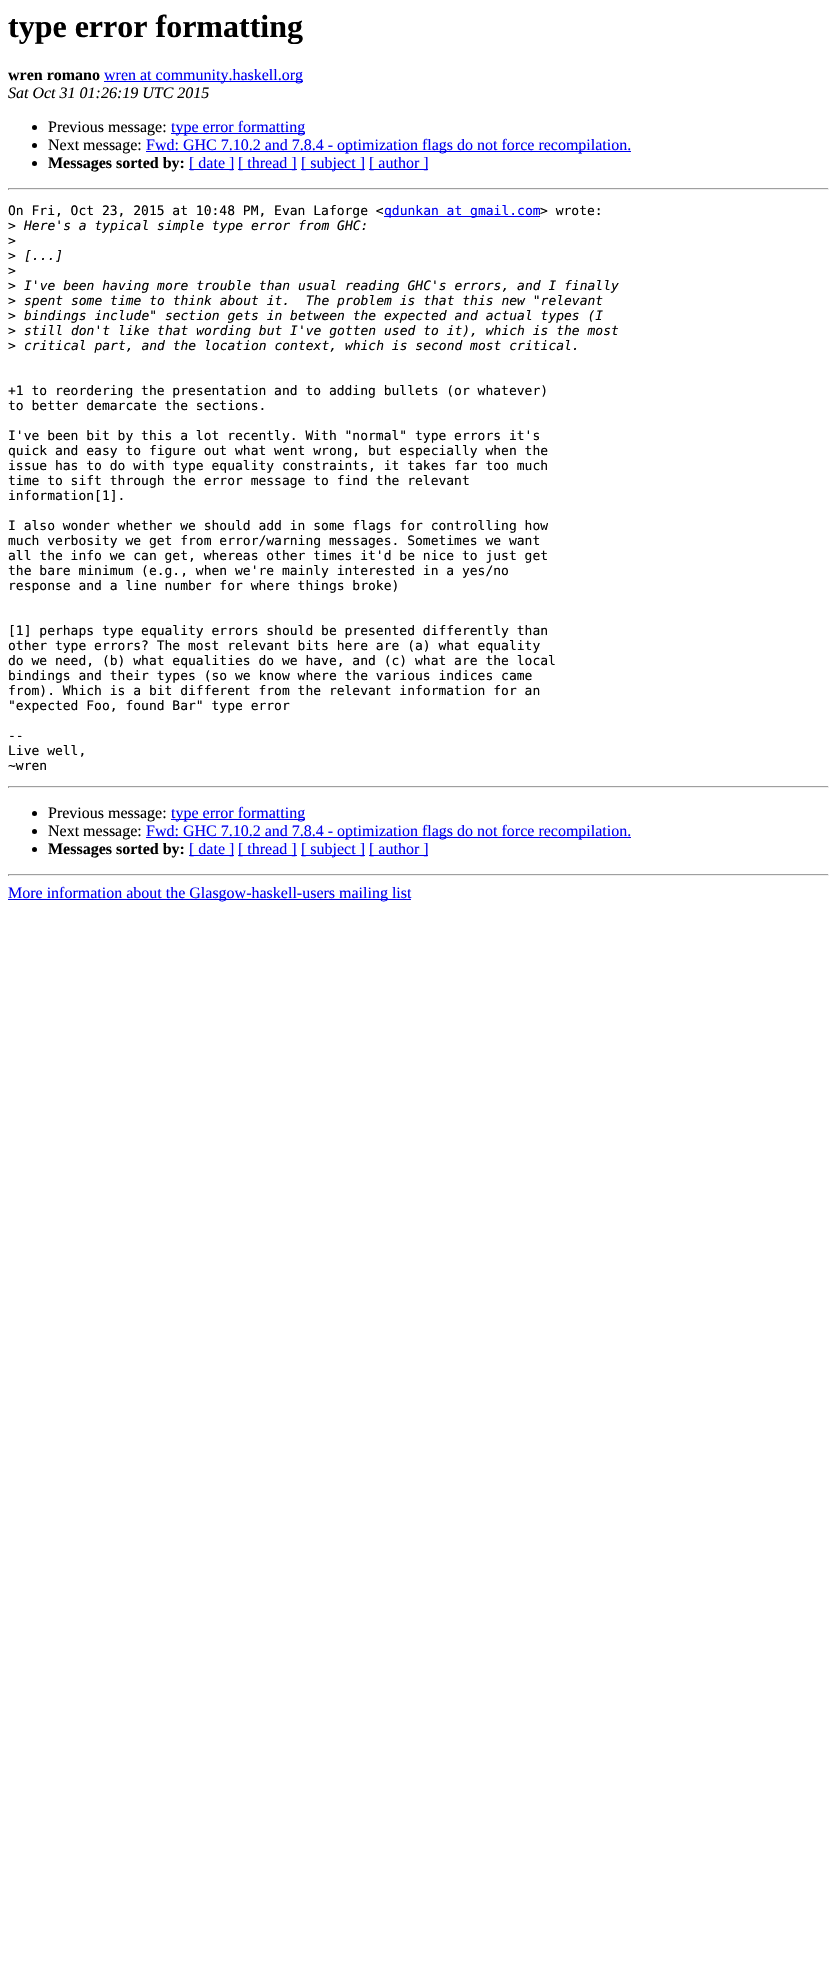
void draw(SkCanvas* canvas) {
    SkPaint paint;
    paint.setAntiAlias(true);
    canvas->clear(0xFFFFFFFF);
    SkFont font1(fontMgr->matchFamilyStyle("Liberation Serif", SkFontStyle::Bold()), 32);
    font1.setSubpixel(true);
    paint.setColor(0xFF000000);
    canvas->drawString("type error formatting", 8, 37, font1, paint);
    SkFont font2(fontMgr->matchFamilyStyle("Liberation Serif", SkFontStyle::Bold()), 16);
    font2.setSubpixel(true);
    canvas->drawString("wren romano", 8, 80, font2, paint);
    paint.setColor(0xFF0000EE);
    canvas->drawRect(SkRect::MakeXYWH(104, 81, 199, 1), paint);
    SkFont font3(fontMgr->matchFamilyStyle("Liberation Serif", SkFontStyle::Normal()), 16);
    font3.setSubpixel(true);
    canvas->drawString("wren at community.haskell.org", 104, 80, font3, paint);
    SkFont font4(fontMgr->matchFamilyStyle("Liberation Serif", SkFontStyle::Italic()), 16);
    font4.setSubpixel(true);
    paint.setColor(0xFF000000);
    canvas->drawString("Sat Oct 31 01:26:19 UTC 2015", 8, 98, font4, paint);
    canvas->drawCircle(34.5f, 127.5f, 2.5f, paint);
    canvas->drawString("Previous message:", 48, 132, font3, paint);
    paint.setColor(0xFF0000EE);
    canvas->drawRect(SkRect::MakeXYWH(171, 133, 134, 1), paint);
    canvas->drawString("type error formatting", 171, 132, font3, paint);
    paint.setColor(0xFF000000);
    canvas->drawCircle(34.5f, 145.5f, 2.5f, paint);
    canvas->drawString("Next message:", 48, 150, font3, paint);
    paint.setColor(0xFF0000EE);
    canvas->drawRect(SkRect::MakeXYWH(146, 151, 485, 1), paint);
    canvas->drawString("Fwd: GHC 7.10.2 and 7.8.4 - optimization flags do not force recompilation.", 146, 150, font3, paint);
    paint.setColor(0xFF000000);
    canvas->drawCircle(34.5f, 163.5f, 2.5f, paint);
    canvas->drawString("Messages sorted by:", 48, 168, font2, paint);
    paint.setColor(0xFF0000EE);
    canvas->drawRect(SkRect::MakeXYWH(189, 169, 45, 1), paint);
    canvas->drawString("[ date ]", 189, 168, font3, paint);
    canvas->drawRect(SkRect::MakeXYWH(238, 169, 59, 1), paint);
    canvas->drawString("[ thread ]", 238, 168, font3, paint);
    canvas->drawRect(SkRect::MakeXYWH(301, 169, 64, 1), paint);
    canvas->drawString("[ subject ]", 301, 168, font3, paint);
    canvas->drawRect(SkRect::MakeXYWH(369, 169, 59, 1), paint);
    canvas->drawString("[ author ]", 369, 168, font3, paint);
    paint.setColor(0xFF9F9F9F);
    canvas->drawRect(SkRect::MakeXYWH(8, 188, 821, 1), paint);
    paint.setColor(0xFFEEEEEE);
    canvas->drawRect(SkRect::MakeXYWH(828, 188, 1, 2), paint);
    canvas->drawRect(SkRect::MakeXYWH(8, 189, 821, 1), paint);
    paint.setColor(0xFF9F9F9F);
    canvas->drawRect(SkRect::MakeXYWH(8, 188, 1, 2), paint);
    SkFont font5(fontMgr->matchFamilyStyle("DejaVu Sans Mono", SkFontStyle::Normal()), 13);
    font5.setSubpixel(true);
    paint.setColor(0xFF000000);
    canvas->drawString("On Fri, Oct 23, 2015 at 10:48 PM, Evan Laforge <", 8, 215, font5, paint);
    paint.setColor(0xFF0000EE);
    canvas->drawRect(SkRect::MakeXYWH(384, 216, 156, 1), paint);
    canvas->drawString("qdunkan at gmail.com", 384, 215, font5, paint);
    paint.setColor(0xFF000000);
    canvas->drawString("> wrote:", 540, 215, font5, paint);
    canvas->drawString(">", 8, 230, font5, paint);
    SkFont font6(fontMgr->matchFamilyStyle("DejaVu Sans Mono", SkFontStyle::Italic()), 13);
    font6.setSubpixel(true);
    canvas->drawString("Here's a typical simple type error from GHC:", 24, 230, font6, paint);
    canvas->drawString(">", 8, 245, font5, paint);
    canvas->drawString(">", 8, 260, font5, paint);
    canvas->drawString("[...]", 24, 260, font6, paint);
    canvas->drawString(">", 8, 275, font5, paint);
    canvas->drawString(">", 8, 290, font5, paint);
    canvas->drawString("I've been having more trouble than usual reading GHC's errors, and I finally", 24, 290, font6, paint);
    canvas->drawString(">", 8, 305, font5, paint);
    canvas->drawString("spent some time to think about it.  The problem is that this new \"relevant", 24, 305, font6, paint);
    canvas->drawString(">", 8, 320, font5, paint);
    canvas->drawString("bindings include\" section gets in between the expected and actual types (I", 24, 320, font6, paint);
    canvas->drawString(">", 8, 335, font5, paint);
    canvas->drawString("still don't like that wording but I've gotten used to it), which is the most", 24, 335, font6, paint);
    canvas->drawString(">", 8, 350, font5, paint);
    canvas->drawString("critical part, and the location context, which is second most critical.", 24, 350, font6, paint);
    canvas->drawString("+1 to reordering the presentation and to adding bullets (or whatever)", 8, 395, font5, paint);
    canvas->drawString("to better demarcate the sections.", 8, 410, font5, paint);
    canvas->drawString("I've been bit by this a lot recently. With \"normal\" type errors it's", 8, 440, font5, paint);
    canvas->drawString("quick and easy to figure out what went wrong, but especially when the", 8, 455, font5, paint);
    canvas->drawString("issue has to do with type equality constraints, it takes far too much", 8, 470, font5, paint);
    canvas->drawString("time to sift through the error message to find the relevant", 8, 485, font5, paint);
    canvas->drawString("information[1].", 8, 500, font5, paint);
    canvas->drawString("I also wonder whether we should add in some flags for controlling how", 8, 530, font5, paint);
    canvas->drawString("much verbosity we get from error/warning messages. Sometimes we want", 8, 545, font5, paint);
    canvas->drawString("all the info we can get, whereas other times it'd be nice to just get", 8, 560, font5, paint);
    canvas->drawString("the bare minimum (e.g., when we're mainly interested in a yes/no", 8, 575, font5, paint);
    canvas->drawString("response and a line number for where things broke)", 8, 590, font5, paint);
    canvas->drawString("[1] perhaps type equality errors should be presented differently than", 8, 635, font5, paint);
    canvas->drawString("other type errors? The most relevant bits here are (a) what equality", 8, 650, font5, paint);
    canvas->drawString("do we need, (b) what equalities do we have, and (c) what are the local", 8, 665, font5, paint);
    canvas->drawString("bindings and their types (so we know where the various indices came", 8, 680, font5, paint);
    canvas->drawString("from). Which is a bit different from the relevant information for an", 8, 695, font5, paint);
    canvas->drawString("\"expected Foo, found Bar\" type error", 8, 710, font5, paint);
    canvas->drawString("--", 8, 740, font5, paint);
    canvas->drawString("Live well,", 8, 755, font5, paint);
    canvas->drawString("~wren", 8, 770, font5, paint);
    paint.setColor(0xFF9F9F9F);
    canvas->drawRect(SkRect::MakeXYWH(8, 786, 821, 1), paint);
    paint.setColor(0xFFEEEEEE);
    canvas->drawRect(SkRect::MakeXYWH(828, 786, 1, 2), paint);
    canvas->drawRect(SkRect::MakeXYWH(8, 787, 821, 1), paint);
    paint.setColor(0xFF9F9F9F);
    canvas->drawRect(SkRect::MakeXYWH(8, 786, 1, 2), paint);
    paint.setColor(0xFF000000);
    canvas->drawCircle(34.5f, 813.5f, 2.5f, paint);
    canvas->drawString("Previous message:", 48, 818, font3, paint);
    paint.setColor(0xFF0000EE);
    canvas->drawRect(SkRect::MakeXYWH(171, 819, 134, 1), paint);
    canvas->drawString("type error formatting", 171, 818, font3, paint);
    paint.setColor(0xFF000000);
    canvas->drawCircle(34.5f, 831.5f, 2.5f, paint);
    canvas->drawString("Next message:", 48, 836, font3, paint);
    paint.setColor(0xFF0000EE);
    canvas->drawRect(SkRect::MakeXYWH(146, 837, 485, 1), paint);
    canvas->drawString("Fwd: GHC 7.10.2 and 7.8.4 - optimization flags do not force recompilation.", 146, 836, font3, paint);
    paint.setColor(0xFF000000);
    canvas->drawCircle(34.5f, 849.5f, 2.5f, paint);
    canvas->drawString("Messages sorted by:", 48, 854, font2, paint);
    paint.setColor(0xFF0000EE);
    canvas->drawRect(SkRect::MakeXYWH(189, 855, 45, 1), paint);
    canvas->drawString("[ date ]", 189, 854, font3, paint);
    canvas->drawRect(SkRect::MakeXYWH(238, 855, 59, 1), paint);
    canvas->drawString("[ thread ]", 238, 854, font3, paint);
    canvas->drawRect(SkRect::MakeXYWH(301, 855, 64, 1), paint);
    canvas->drawString("[ subject ]", 301, 854, font3, paint);
    canvas->drawRect(SkRect::MakeXYWH(369, 855, 59, 1), paint);
    canvas->drawString("[ author ]", 369, 854, font3, paint);
    paint.setColor(0xFF9F9F9F);
    canvas->drawRect(SkRect::MakeXYWH(8, 874, 821, 1), paint);
    paint.setColor(0xFFEEEEEE);
    canvas->drawRect(SkRect::MakeXYWH(828, 874, 1, 2), paint);
    canvas->drawRect(SkRect::MakeXYWH(8, 875, 821, 1), paint);
    paint.setColor(0xFF9F9F9F);
    canvas->drawRect(SkRect::MakeXYWH(8, 874, 1, 2), paint);
    paint.setColor(0xFF0000EE);
    canvas->drawRect(SkRect::MakeXYWH(8, 899, 403, 1), paint);
    canvas->drawString("More information about the Glasgow-haskell-users mailing list", 8, 898, font3, paint);
}
